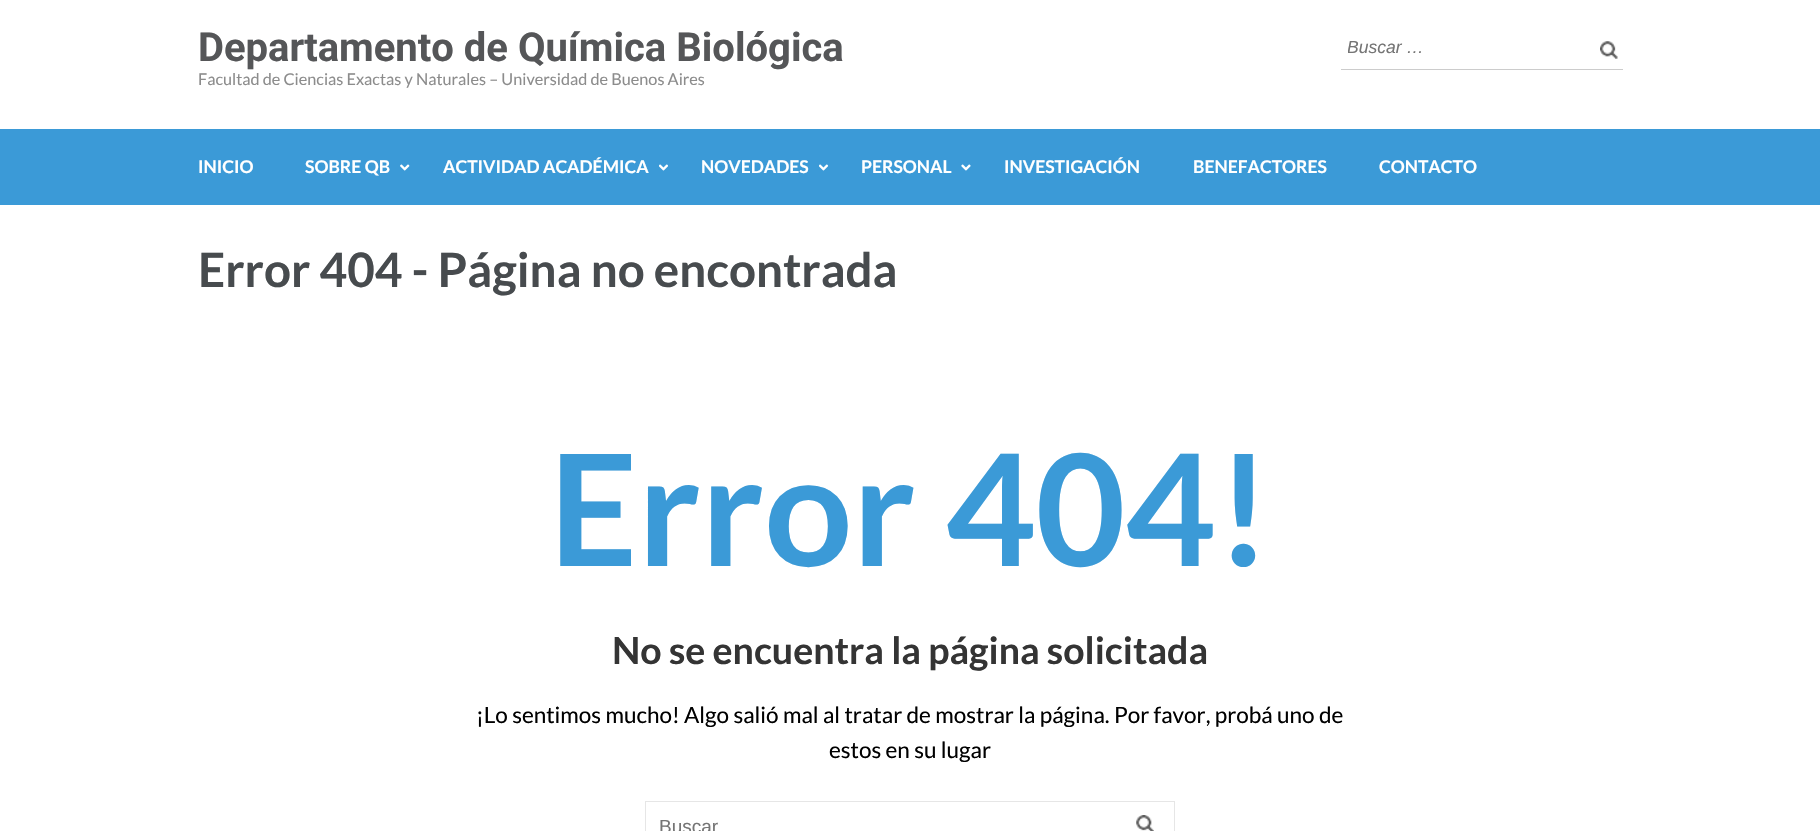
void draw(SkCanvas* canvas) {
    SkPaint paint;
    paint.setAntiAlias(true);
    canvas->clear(0xFFFFFFFF);
    SkFont font1(fontMgr->matchFamilyStyle("Roboto", SkFontStyle::Bold()), 40);
    font1.setSubpixel(true);
    paint.setColor(0xFF555658);
    canvas->drawString("Departamento de Química Biológica", 198, 61, font1, paint);
    SkFont font2(fontMgr->matchFamilyStyle("Lato", SkFontStyle::Normal()), 16.25f);
    font2.setSubpixel(true);
    paint.setColor(0xFF8C8C8C);
    canvas->drawString("Facultad de Ciencias Exactas y Naturales – Universidad de Buenos Aires", 198, 85, font2, paint);
    paint.setColor(0xFFCCCCCC);
    canvas->drawRect(SkRect::MakeXYWH(1341, 69, 282, 1), paint);
    canvas->save();
    canvas->clipRect(SkRect::MakeXYWH(1348, 38, 222, 20));
    SkFont font3(fontMgr->matchFamilyStyle("Liberation Sans", SkFontStyle::Italic()), 17.5f);
    font3.setSubpixel(true);
    paint.setColor(0xFF757575);
    canvas->drawString("Buscar …", 1347, 53, font3, paint);
    canvas->restore();
    canvas->drawImageRect(SkImages::DeferredFromEncodedData(SkData::MakeFromFileName("img1.png")), SkRect::MakeXYWH(1600, 41, 18, 18), SkSamplingOptions());
    paint.setColor(0xFF3B9AD7);
    canvas->drawRect(SkRect::MakeXYWH(0, 129, 1820, 76), paint);
    SkFont font4(fontMgr->matchFamilyStyle("Lato", SkFontStyle::Bold()), 17.5f);
    font4.setSubpixel(true);
    paint.setColor(0xFFFFFFFF);
    canvas->drawString("INICIO", 198, 173, font4, paint);
    canvas->drawString("SOBRE QB", 305, 173, font4, paint);
    canvas->drawImageRect(SkImages::DeferredFromEncodedData(SkData::MakeFromFileName("img2.png")), SkRect::MakeXYWH(400, 164, 10, 7), SkSamplingOptions());
    canvas->drawString("ACTIVIDAD ACADÉMICA", 443, 173, font4, paint);
    canvas->drawImageRect(SkImages::DeferredFromEncodedData(SkData::MakeFromFileName("img3.png")), SkRect::MakeXYWH(659, 164, 9, 7), SkSamplingOptions());
    canvas->drawString("NOVEDADES", 701, 173, font4, paint);
    canvas->drawImageRect(SkImages::DeferredFromEncodedData(SkData::MakeFromFileName("img4.png")), SkRect::MakeXYWH(819, 164, 10, 7), SkSamplingOptions());
    canvas->drawString("PERSONAL", 861, 173, font4, paint);
    canvas->drawImageRect(SkImages::DeferredFromEncodedData(SkData::MakeFromFileName("img5.png")), SkRect::MakeXYWH(961, 164, 10, 7), SkSamplingOptions());
    canvas->drawString("INVESTIGACIÓN", 1004, 173, font4, paint);
    canvas->drawString("BENEFACTORES", 1193, 173, font4, paint);
    canvas->drawString("CONTACTO", 1379, 173, font4, paint);
    SkFont font5(fontMgr->matchFamilyStyle("Lato", SkFontStyle::Bold()), 47.5f);
    font5.setSubpixel(true);
    paint.setColor(0xFF474B4E);
    canvas->drawString("Error 404 - Página no encontrada", 198, 287, font5, paint);
    SkFont font6(fontMgr->matchFamilyStyle("Lato", SkFontStyle::Bold()), 155);
    font6.setSubpixel(true);
    paint.setColor(0xFF3B9AD7);
    canvas->drawString("Error 404!", 549, 566, font6, paint);
    SkFont font7(fontMgr->matchFamilyStyle("Lato", SkFontStyle::Bold()), 37.5f);
    font7.setSubpixel(true);
    paint.setColor(0xFF343434);
    canvas->drawString("No se encuentra la página solicitada", 612, 664, font7, paint);
    SkFont font8(fontMgr->matchFamilyStyle("Lato", SkFontStyle::Normal()), 22.5f);
    font8.setSubpixel(true);
    paint.setColor(0xFF000000);
    canvas->drawString("¡Lo sentimos mucho! Algo salió mal al tratar de mostrar la página. Por favor, probá uno de", 476, 723, font8, paint);
    canvas->drawString("estos en su lugar", 829, 758, font8, paint);
    paint.setStyle(SkPaint::kStroke_Style);
    paint.setStrokeWidth(1);
    paint.setColor(0xFFE6E6E6);
    canvas->drawRect(SkRect::MakeXYWH(645.5f, 801.5f, 529, 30), paint);
    SkFont font9(fontMgr->matchFamilyStyle("Liberation Sans", SkFontStyle::Normal()), 19);
    font9.setSubpixel(true);
    paint.setStyle(SkPaint::kFill_Style);
    paint.setColor(0xFF757575);
    canvas->drawString("Buscar", 659, 833, font9, paint);
    canvas->drawImageRect(SkImages::DeferredFromEncodedData(SkData::MakeFromFileName("img6.png")), SkRect::MakeXYWH(1136, 815, 18, 16), SkSamplingOptions());
}
